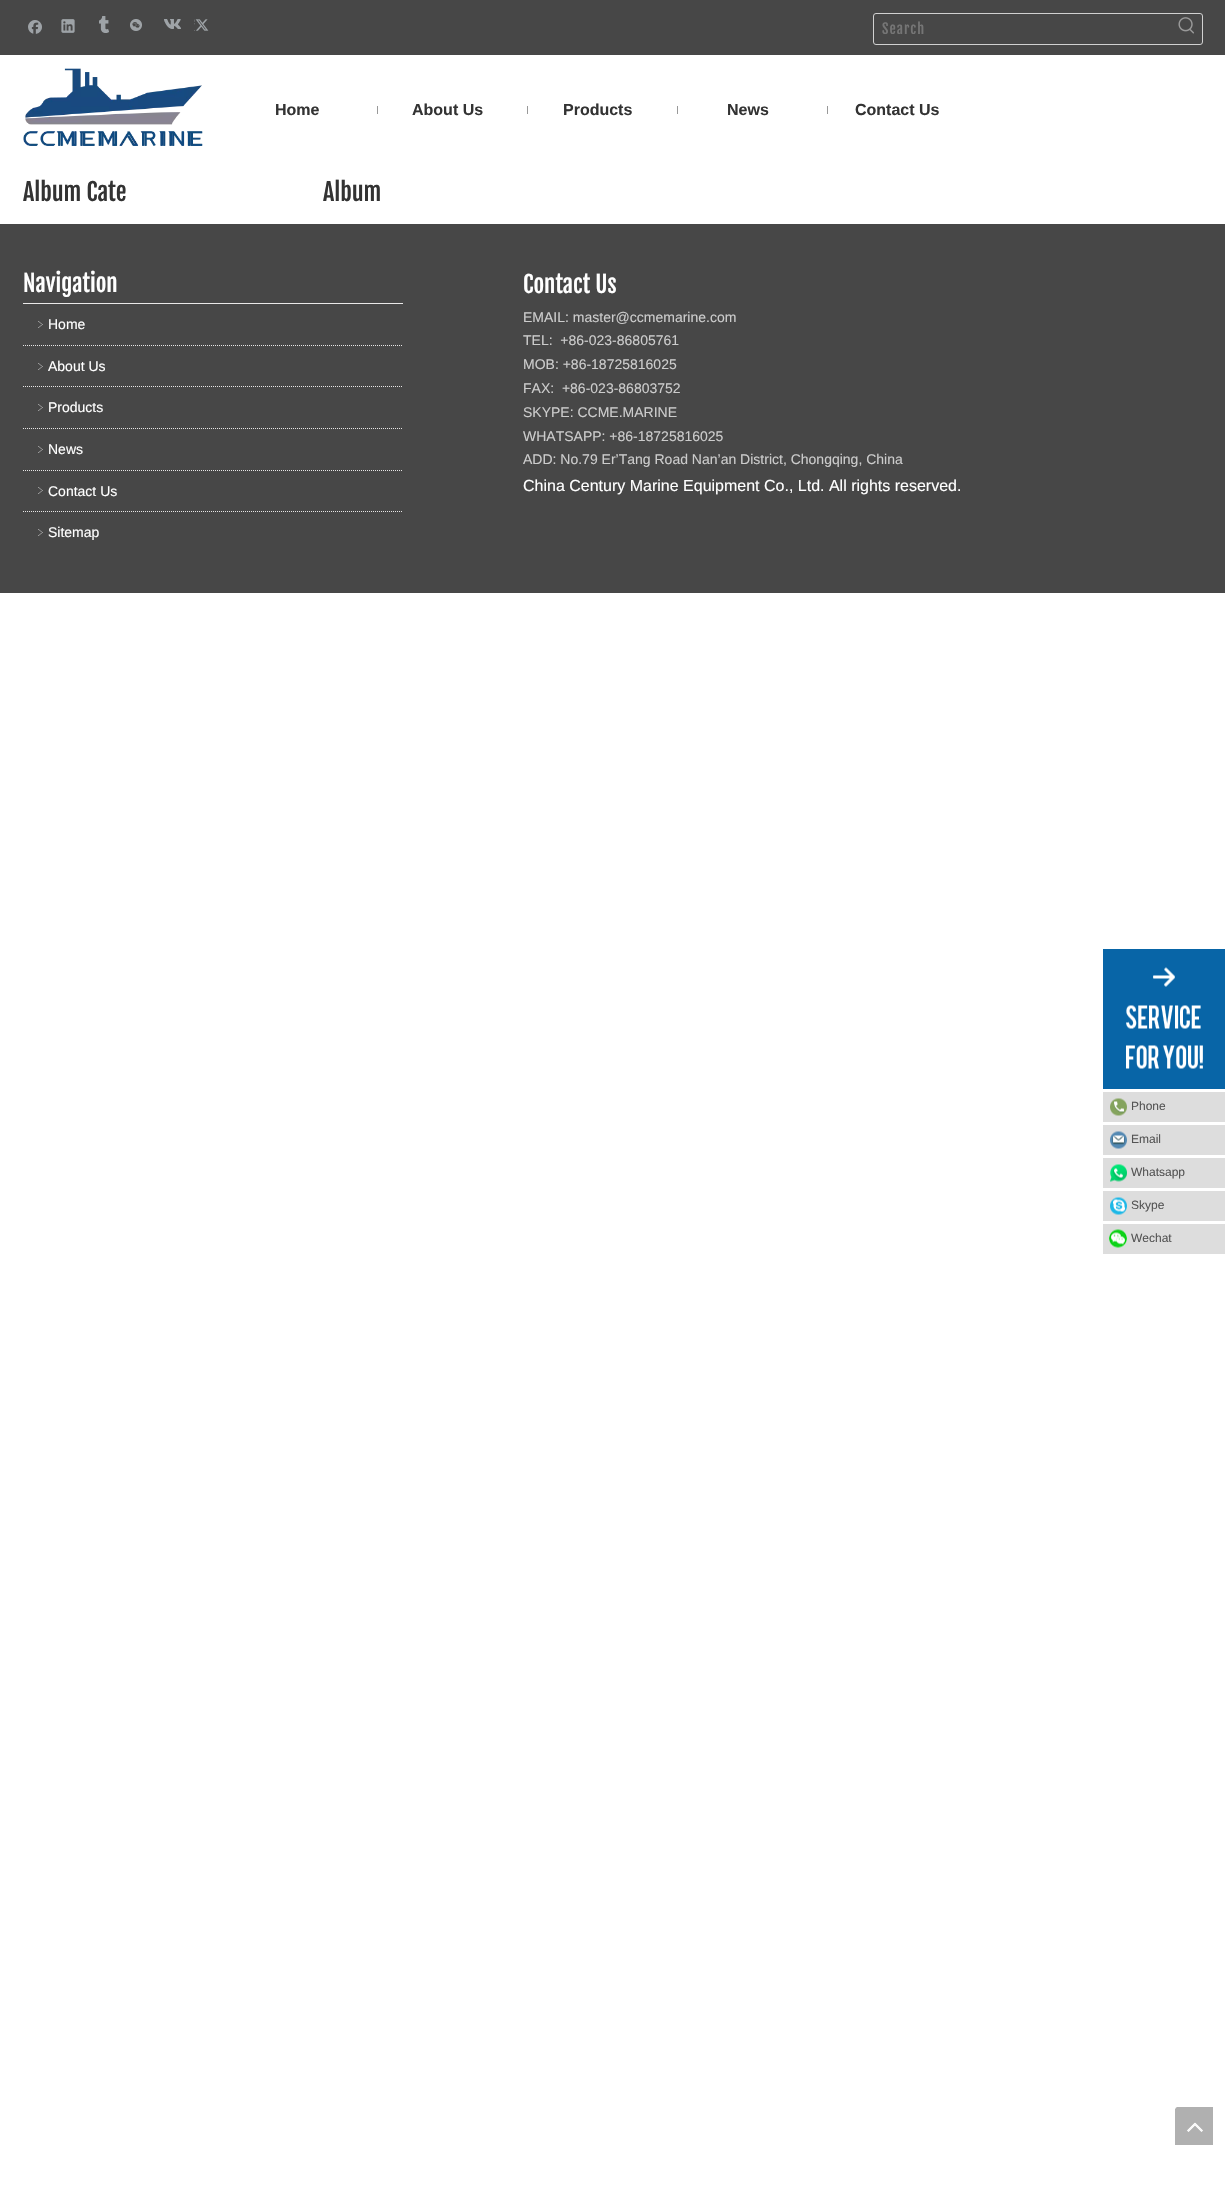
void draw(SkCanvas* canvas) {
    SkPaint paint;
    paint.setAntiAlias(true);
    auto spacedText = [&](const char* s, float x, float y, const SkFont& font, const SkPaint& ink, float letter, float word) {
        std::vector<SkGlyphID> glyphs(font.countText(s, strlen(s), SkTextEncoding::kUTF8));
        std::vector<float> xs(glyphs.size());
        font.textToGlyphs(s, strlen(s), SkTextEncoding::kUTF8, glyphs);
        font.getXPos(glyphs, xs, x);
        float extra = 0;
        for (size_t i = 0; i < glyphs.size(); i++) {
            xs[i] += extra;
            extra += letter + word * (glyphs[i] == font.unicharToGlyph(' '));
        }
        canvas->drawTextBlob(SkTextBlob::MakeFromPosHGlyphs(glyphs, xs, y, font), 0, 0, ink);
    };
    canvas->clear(0xFFFFFFFF);
    paint.setColor(0xFF474747);
    canvas->drawRect(SkRect::MakeXYWH(0, 0, 1225, 55), paint);
    canvas->drawImageRect(SkImages::DeferredFromEncodedData(SkData::MakeFromFileName("img1.png")), SkRect::MakeXYWH(28, 20, 14, 14), SkSamplingOptions());
    canvas->drawImageRect(SkImages::DeferredFromEncodedData(SkData::MakeFromFileName("img2.png")), SkRect::MakeXYWH(61, 19, 14, 14), SkSamplingOptions());
    canvas->drawImageRect(SkImages::DeferredFromEncodedData(SkData::MakeFromFileName("img3.png")), SkRect::MakeXYWH(99, 16, 10, 17), SkSamplingOptions());
    canvas->drawImageRect(SkImages::DeferredFromEncodedData(SkData::MakeFromFileName("img4.png")), SkRect::MakeXYWH(130, 19, 12, 12), SkSamplingOptions());
    canvas->drawImageRect(SkImages::DeferredFromEncodedData(SkData::MakeFromFileName("img5.png")), SkRect::MakeXYWH(164, 19, 17, 10), SkSamplingOptions());
    canvas->drawImageRect(SkImages::DeferredFromEncodedData(SkData::MakeFromFileName("img6.png")), SkRect::MakeXYWH(194, 19, 15, 12), SkSamplingOptions());
    paint.setStyle(SkPaint::kStroke_Style);
    paint.setStrokeWidth(1);
    paint.setColor(0xFFD1D1D1);
    canvas->drawRoundRect(SkRect::MakeXYWH(873.5f, 13.5f, 329, 31), 2.5f, 2.5f, paint);
    SkFont font1(fontMgr->matchFamilyStyle("Fjalla One", SkFontStyle::Normal()), 14);
    font1.setSubpixel(true);
    paint.setStyle(SkPaint::kFill_Style);
    paint.setColor(0xFF757575);
    spacedText("Search", 882, 34, font1, paint, 1, 0);
    canvas->drawImageRect(SkImages::DeferredFromEncodedData(SkData::MakeFromFileName("img7.png")), SkRect::MakeXYWH(1178, 17, 16, 17), SkSamplingOptions());
    canvas->drawImageRect(SkImages::DeferredFromEncodedData(SkData::MakeFromFileName("img8.png")), SkRect::MakeXYWH(23, 68, 180, 78), SkSamplingOptions());
    SkFont font2(fontMgr->matchFamilyStyle("Liberation Sans", SkFontStyle::Bold()), 16);
    font2.setSubpixel(true);
    paint.setColor(0xFF333333);
    canvas->drawString("Home", 275, 115, font2, paint);
    paint.setColor(0xFF999999);
    canvas->drawRect(SkRect::MakeXYWH(377, 106, 1, 8), paint);
    paint.setColor(0xFF333333);
    canvas->drawString("About Us", 412, 115, font2, paint);
    paint.setColor(0xFF999999);
    canvas->drawRect(SkRect::MakeXYWH(527, 106, 1, 8), paint);
    paint.setColor(0xFF333333);
    canvas->drawString("Products", 563, 115, font2, paint);
    paint.setColor(0xFF999999);
    canvas->drawRect(SkRect::MakeXYWH(677, 106, 1, 8), paint);
    paint.setColor(0xFF333333);
    canvas->drawString("News", 727, 115, font2, paint);
    paint.setColor(0xFF999999);
    canvas->drawRect(SkRect::MakeXYWH(827, 106, 1, 8), paint);
    paint.setColor(0xFF333333);
    canvas->drawString("Contact Us", 855, 115, font2, paint);
    SkFont font3(fontMgr->matchFamilyStyle("Fjalla One", SkFontStyle::Normal()), 24);
    font3.setSubpixel(true);
    canvas->drawString("Album Cate", 23, 201, font3, paint);
    canvas->drawString("Album", 323, 201, font3, paint);
    paint.setColor(0xFF474747);
    canvas->drawRect(SkRect::MakeXYWH(0, 224, 1225, 369), paint);
    paint.setColor(0xFFEAE9E9);
    canvas->drawRect(SkRect::MakeXYWH(23, 303, 380, 1), paint);
    SkFont font4(fontMgr->matchFamilyStyle("Fjalla One", SkFontStyle::Normal()), 23);
    font4.setSubpixel(true);
    paint.setColor(0xFFFFFFFF);
    canvas->drawString("Navigation", 23, 292, font4, paint);
    canvas->drawImageRect(SkImages::DeferredFromEncodedData(SkData::MakeFromFileName("img9.png")), SkRect::MakeXYWH(38, 321, 5, 7), SkSamplingOptions());
    SkFont font5(fontMgr->matchFamilyStyle("Liberation Sans", SkFontStyle::Normal()), 14);
    font5.setSubpixel(true);
    canvas->drawString("Home", 48, 329, font5, paint);
    paint.setStyle(SkPaint::kStroke_Style);
    paint.setColor(0xFFE7E6E6);
    paint.setPathEffect(SkDashPathEffect::Make({{1, 1}}, 0));
    canvas->drawPath(SkPathBuilder().moveTo(23, 345.5f).lineTo(403, 345.5f).detach(), paint);
    paint.setPathEffect(nullptr);
    canvas->drawImageRect(SkImages::DeferredFromEncodedData(SkData::MakeFromFileName("img9.png")), SkRect::MakeXYWH(38, 363, 5, 7), SkSamplingOptions());
    paint.setStyle(SkPaint::kFill_Style);
    paint.setColor(0xFFFFFFFF);
    canvas->drawString("About Us", 48, 371, font5, paint);
    paint.setStyle(SkPaint::kStroke_Style);
    paint.setColor(0xFFE7E6E6);
    paint.setPathEffect(SkDashPathEffect::Make({{1, 1}}, 0));
    canvas->drawPath(SkPathBuilder().moveTo(23, 386.5f).lineTo(403, 386.5f).detach(), paint);
    paint.setPathEffect(nullptr);
    canvas->drawImageRect(SkImages::DeferredFromEncodedData(SkData::MakeFromFileName("img9.png")), SkRect::MakeXYWH(38, 404, 5, 7), SkSamplingOptions());
    paint.setStyle(SkPaint::kFill_Style);
    paint.setColor(0xFFFFFFFF);
    canvas->drawString("Products", 48, 412, font5, paint);
    paint.setStyle(SkPaint::kStroke_Style);
    paint.setColor(0xFFE7E6E6);
    paint.setPathEffect(SkDashPathEffect::Make({{1, 1}}, 0));
    canvas->drawPath(SkPathBuilder().moveTo(23, 428.5f).lineTo(403, 428.5f).detach(), paint);
    paint.setPathEffect(nullptr);
    canvas->drawImageRect(SkImages::DeferredFromEncodedData(SkData::MakeFromFileName("img9.png")), SkRect::MakeXYWH(38, 446, 5, 7), SkSamplingOptions());
    paint.setStyle(SkPaint::kFill_Style);
    paint.setColor(0xFFFFFFFF);
    canvas->drawString("News", 48, 454, font5, paint);
    paint.setStyle(SkPaint::kStroke_Style);
    paint.setColor(0xFFE7E6E6);
    paint.setPathEffect(SkDashPathEffect::Make({{1, 1}}, 0));
    canvas->drawPath(SkPathBuilder().moveTo(23, 470.5f).lineTo(403, 470.5f).detach(), paint);
    paint.setPathEffect(nullptr);
    canvas->drawImageRect(SkImages::DeferredFromEncodedData(SkData::MakeFromFileName("img9.png")), SkRect::MakeXYWH(38, 487, 5, 7), SkSamplingOptions());
    paint.setStyle(SkPaint::kFill_Style);
    paint.setColor(0xFFFFFFFF);
    canvas->drawString("Contact Us", 48, 496, font5, paint);
    paint.setStyle(SkPaint::kStroke_Style);
    paint.setColor(0xFFE7E6E6);
    paint.setPathEffect(SkDashPathEffect::Make({{1, 1}}, 0));
    canvas->drawPath(SkPathBuilder().moveTo(23, 511.5f).lineTo(403, 511.5f).detach(), paint);
    paint.setPathEffect(nullptr);
    canvas->drawImageRect(SkImages::DeferredFromEncodedData(SkData::MakeFromFileName("img9.png")), SkRect::MakeXYWH(38, 529, 5, 7), SkSamplingOptions());
    paint.setStyle(SkPaint::kFill_Style);
    paint.setColor(0xFFFFFFFF);
    canvas->drawString("Sitemap", 48, 537, font5, paint);
    canvas->drawString("Contact Us", 523, 293, font4, paint);
    paint.setColor(0xFFCCCCCC);
    canvas->drawString("EMAIL: master@ccmemarine.com", 523, 322, font5, paint);
    canvas->drawString("TEL:  +86-023-86805761", 523, 345, font5, paint);
    canvas->drawString("MOB: +86-18725816025", 523, 369, font5, paint);
    canvas->drawString("FAX:  +86-023-86803752", 523, 393, font5, paint);
    canvas->drawString("SKYPE: CCME.MARINE", 523, 417, font5, paint);
    canvas->drawString("WHATSAPP: +86-18725816025", 523, 441, font5, paint);
    canvas->drawString("ADD: No.79 Er’Tang Road Nan’an District, Chongqing, China", 523, 464, font5, paint);
    SkFont font6(fontMgr->matchFamilyStyle("Liberation Sans", SkFontStyle::Normal()), 16);
    font6.setSubpixel(true);
    paint.setColor(0xFFFFFFFF);
    canvas->drawString("China Century Marine Equipment Co., Ltd. All rights reserved.", 523, 491, font6, paint);
    paint.setColor(0xFF0865A7);
    canvas->drawRect(SkRect::MakeXYWH(1103, 949, 122, 140), paint);
    canvas->drawImageRect(SkImages::DeferredFromEncodedData(SkData::MakeFromFileName("img10.png")), SkRect::MakeXYWH(1126, 967, 77, 102), SkSamplingOptions());
    paint.setColor(0xFFDDDDDD);
    canvas->drawRect(SkRect::MakeXYWH(1103, 1092, 122, 30), paint);
    canvas->drawImageRect(SkImages::DeferredFromEncodedData(SkData::MakeFromFileName("img11.png")), SkRect::MakeXYWH(1110, 1098, 17, 18), SkSamplingOptions());
    SkFont font7(fontMgr->matchFamilyStyle("Liberation Sans", SkFontStyle::Normal()), 12);
    font7.setSubpixel(true);
    paint.setColor(0xFF545454);
    canvas->drawString("Phone", 1131, 1110, font7, paint);
    paint.setColor(0xFFDDDDDD);
    canvas->drawRect(SkRect::MakeXYWH(1103, 1125, 122, 30), paint);
    canvas->drawImageRect(SkImages::DeferredFromEncodedData(SkData::MakeFromFileName("img12.png")), SkRect::MakeXYWH(1110, 1131, 17, 18), SkSamplingOptions());
    paint.setColor(0xFF545454);
    canvas->drawString("Email", 1131, 1143, font7, paint);
    paint.setColor(0xFFDDDDDD);
    canvas->drawRect(SkRect::MakeXYWH(1103, 1158, 122, 30), paint);
    canvas->drawImageRect(SkImages::DeferredFromEncodedData(SkData::MakeFromFileName("img13.png")), SkRect::MakeXYWH(1110, 1164, 17, 18), SkSamplingOptions());
    paint.setColor(0xFF545454);
    canvas->drawString("Whatsapp", 1131, 1176, font7, paint);
    paint.setColor(0xFFDDDDDD);
    canvas->drawRect(SkRect::MakeXYWH(1103, 1191, 122, 30), paint);
    canvas->drawImageRect(SkImages::DeferredFromEncodedData(SkData::MakeFromFileName("img14.png")), SkRect::MakeXYWH(1110, 1197, 17, 18), SkSamplingOptions());
    paint.setColor(0xFF545454);
    canvas->drawString("Skype", 1131, 1209, font7, paint);
    paint.setColor(0xFFDDDDDD);
    canvas->drawRect(SkRect::MakeXYWH(1103, 1224, 122, 30), paint);
    canvas->drawImageRect(SkImages::DeferredFromEncodedData(SkData::MakeFromFileName("img15.png")), SkRect::MakeXYWH(1109, 1229, 18, 19), SkSamplingOptions());
    paint.setColor(0xFF545454);
    canvas->drawString("Wechat", 1131, 1242, font7, paint);
    canvas->drawImageRect(SkImages::DeferredFromEncodedData(SkData::MakeFromFileName("img16.png")), SkRect::MakeXYWH(1175, 2107, 38, 38), SkSamplingOptions());
}
